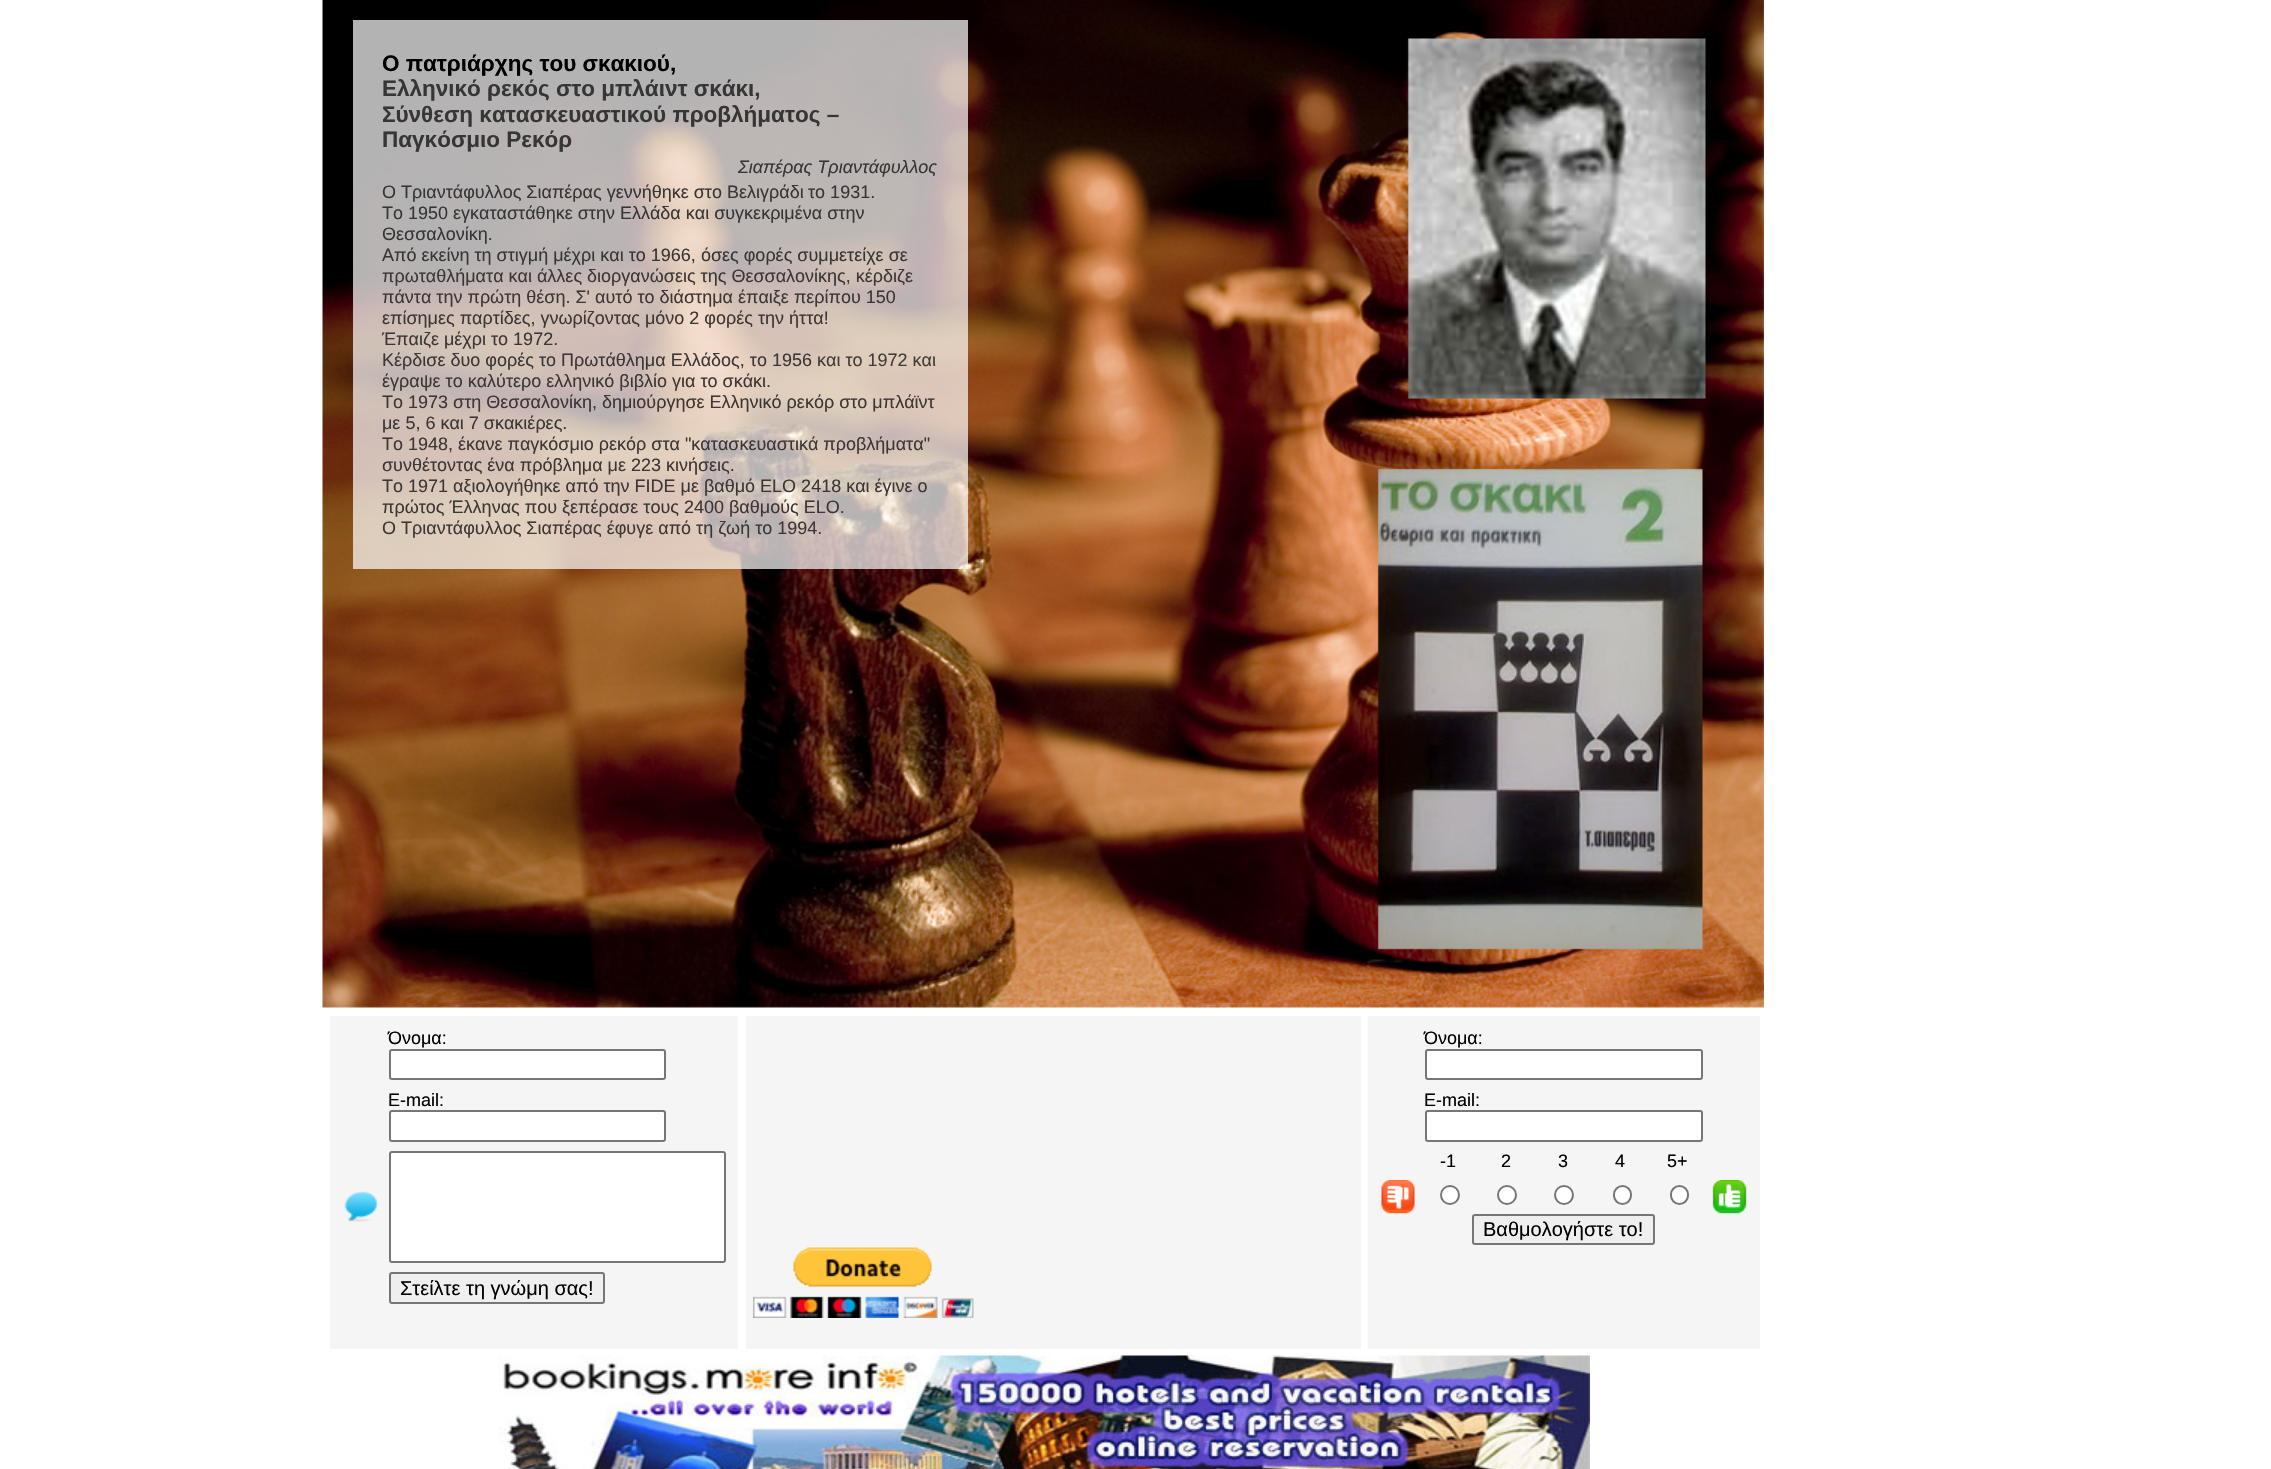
void draw(SkCanvas* canvas) {
    SkPaint paint;
    paint.setAntiAlias(true);
    canvas->clear(0xFFFFFFFF);
    canvas->drawImageRect(SkImages::DeferredFromEncodedData(SkData::MakeFromFileName("img1.png")), SkRect::MakeXYWH(322, 0, 1442, 1008), SkSamplingOptions());
    paint.setColor(0xB3FFFFFF);
    canvas->drawRect(SkRect::MakeXYWH(353, 20, 615, 549), paint);
    SkFont font1(fontMgr->matchFamilyStyle("Liberation Sans", SkFontStyle::Bold()), 22.5f);
    font1.setSubpixel(true);
    paint.setColor(0xFF000000);
    canvas->drawString("Ο πατριάρχης του σκακιού,", 382, 71, font1, paint);
    paint.setColor(0xFF363636);
    canvas->drawString("Ελληνικό ρεκός στο μπλάιντ σκάκι,", 382, 96, font1, paint);
    canvas->drawString("Σύνθεση κατασκευαστικού προβλήματος –", 382, 122, font1, paint);
    canvas->drawString("Παγκόσμιο Ρεκόρ", 382, 147, font1, paint);
    SkFont font2(fontMgr->matchFamilyStyle("Liberation Sans", SkFontStyle::Italic()), 18);
    font2.setSubpixel(true);
    canvas->drawString("Σιαπέρας Τριαντάφυλλος", 738, 173, font2, paint);
    SkFont font3(fontMgr->matchFamilyStyle("Liberation Sans", SkFontStyle::Normal()), 18);
    font3.setSubpixel(true);
    canvas->drawString("Ο Τριαντάφυλλος Σιαπέρας γεννήθηκε στο Βελιγράδι", 382, 198, font3, paint);
    canvas->drawString("το 1931.", 808, 198, font3, paint);
    canvas->drawString("Το 1950 εγκαταστάθηκε στην Ελλάδα και συγκεκριμένα στην", 382, 219, font3, paint);
    canvas->drawString("Θεσσαλονίκη.", 382, 240, font3, paint);
    canvas->drawString("Από εκείνη τη στιγμή μέχρι και το 1966, όσες φορές συμμετείχε σε", 382, 261, font3, paint);
    paint.setColor(0xFF3C3736);
    canvas->drawString("πρωταθλήματα και άλλες διοργανώσεις της Θεσσαλονίκης, κέρδιζε", 382, 282, font3, paint);
    canvas->drawString("πάντα την πρώτη θέση. Σ' αυτό το διάστημα έπαιξε περίπου 150", 382, 303, font3, paint);
    canvas->drawString("επίσημες παρτίδες, γνωρίζοντας μόνο 2 φορές την ήττα!", 382, 324, font3, paint);
    canvas->drawString("Έπαιζε μέχρι το 1972.", 382, 345, font3, paint);
    canvas->drawString("Κέρδισε δυο φορές το Πρωτάθλημα Ελλάδος, το 1956", 382, 366, font3, paint);
    paint.setColor(0xFF423D38);
    canvas->drawString("και το 1972 και", 817, 366, font3, paint);
    paint.setColor(0xFF3C3736);
    canvas->drawString("έγραψε το καλύτερο ελληνικό βιβλίο για το σκάκι.", 382, 387, font3, paint);
    canvas->drawString("Το 1973 στη Θεσσαλονίκη, δημιούργησε Ελληνικό ρεκόρ στο μπλάϊντ", 382, 408, font3, paint);
    canvas->drawString("με 5, 6 και 7 σκακιέρες.", 382, 429, font3, paint);
    canvas->drawString("Το 1948, έκανε παγκόσμιο ρεκόρ στα \"κατασκευαστικά προβλήματα\"", 382, 450, font3, paint);
    canvas->drawString("συνθέτοντας ένα πρόβλημα με 223 κινήσεις.", 382, 471, font3, paint);
    canvas->drawString("To 1971 αξιολογήθηκε από την FIDE με βαθμό ELO 2418 και έγινε ο", 382, 492, font3, paint);
    canvas->drawString("πρώτος Έλληνας που ξεπέρασε τους 2400 βαθμούς ELO.", 382, 513, font3, paint);
    canvas->drawString("Ο Τριαντάφυλλος Σιαπέρας έφυγε από τη ζωή το 1994.", 382, 534, font3, paint);
    paint.setColor(0xFFF5F5F5);
    canvas->drawRect(SkRect::MakeXYWH(330, 1016, 408, 333), paint);
    paint.setColor(0xFF000000);
    canvas->drawString("Όνομα:", 388, 1044, font3, paint);
    paint.setColor(0xFFFFFFFF);
    canvas->drawRoundRect(SkRect::MakeXYWH(390, 1050, 275, 29), 2, 2, paint);
    paint.setStyle(SkPaint::kStroke_Style);
    paint.setStrokeWidth(2);
    paint.setColor(0xFF767676);
    canvas->drawRoundRect(SkRect::MakeXYWH(390, 1050, 275, 29), 2, 2, paint);
    paint.setStyle(SkPaint::kFill_Style);
    paint.setColor(0xFF000000);
    canvas->drawString("E-mail:", 388, 1106, font3, paint);
    paint.setColor(0xFFFFFFFF);
    canvas->drawRoundRect(SkRect::MakeXYWH(390, 1111, 275, 30), 2, 2, paint);
    paint.setStyle(SkPaint::kStroke_Style);
    paint.setColor(0xFF767676);
    canvas->drawRoundRect(SkRect::MakeXYWH(390, 1111, 275, 30), 2, 2, paint);
    canvas->drawImageRect(SkImages::DeferredFromEncodedData(SkData::MakeFromFileName("img2.png")), SkRect::MakeXYWH(344, 1191, 35, 31), SkSamplingOptions());
    paint.setStyle(SkPaint::kFill_Style);
    paint.setColor(0xFFFFFFFF);
    canvas->drawRoundRect(SkRect::MakeXYWH(390, 1152, 335, 110), 2, 2, paint);
    paint.setStyle(SkPaint::kStroke_Style);
    paint.setColor(0xFF767676);
    canvas->drawRoundRect(SkRect::MakeXYWH(390, 1152, 335, 110), 2, 2, paint);
    paint.setStyle(SkPaint::kFill_Style);
    paint.setColor(0xFFEFEFEF);
    canvas->drawRoundRect(SkRect::MakeXYWH(390, 1273, 214, 30), 2, 2, paint);
    paint.setStyle(SkPaint::kStroke_Style);
    paint.setColor(0xFF767676);
    canvas->drawRoundRect(SkRect::MakeXYWH(390, 1273, 214, 30), 2, 2, paint);
    SkFont font4(fontMgr->matchFamilyStyle("Liberation Sans", SkFontStyle::Normal()), 20);
    font4.setSubpixel(true);
    paint.setStyle(SkPaint::kFill_Style);
    paint.setColor(0xFF000000);
    canvas->drawString("Στείλτε τη γνώμη σας!", 400, 1295, font4, paint);
    paint.setColor(0xFFF5F5F5);
    canvas->drawRect(SkRect::MakeXYWH(746, 1016, 615, 333), paint);
    canvas->drawImageRect(SkImages::DeferredFromEncodedData(SkData::MakeFromFileName("img3.png")), SkRect::MakeXYWH(753, 1247, 221, 71), SkSamplingOptions());
    canvas->drawRect(SkRect::MakeXYWH(1368, 1016, 392, 333), paint);
    paint.setColor(0xFF000000);
    canvas->drawString("Όνομα:", 1424, 1044, font3, paint);
    paint.setColor(0xFFFFFFFF);
    canvas->drawRoundRect(SkRect::MakeXYWH(1426, 1050, 276, 29), 2, 2, paint);
    paint.setStyle(SkPaint::kStroke_Style);
    paint.setColor(0xFF767676);
    canvas->drawRoundRect(SkRect::MakeXYWH(1426, 1050, 276, 29), 2, 2, paint);
    paint.setStyle(SkPaint::kFill_Style);
    paint.setColor(0xFF000000);
    canvas->drawString("E-mail:", 1424, 1106, font3, paint);
    paint.setColor(0xFFFFFFFF);
    canvas->drawRoundRect(SkRect::MakeXYWH(1426, 1111, 276, 30), 2, 2, paint);
    paint.setStyle(SkPaint::kStroke_Style);
    paint.setColor(0xFF767676);
    canvas->drawRoundRect(SkRect::MakeXYWH(1426, 1111, 276, 30), 2, 2, paint);
    paint.setStyle(SkPaint::kFill_Style);
    paint.setColor(0xFF000000);
    canvas->drawString("-1", 1440, 1167, font3, paint);
    canvas->drawString("2", 1501, 1167, font3, paint);
    canvas->drawString("3", 1558, 1167, font3, paint);
    canvas->drawString("4", 1615, 1167, font3, paint);
    canvas->drawString("5+", 1667, 1167, font3, paint);
    canvas->drawImageRect(SkImages::DeferredFromEncodedData(SkData::MakeFromFileName("img4.png")), SkRect::MakeXYWH(1381, 1180, 34, 34), SkSamplingOptions());
    canvas->drawImageRect(SkImages::DeferredFromEncodedData(SkData::MakeFromFileName("img5.png")), SkRect::MakeXYWH(1712, 1180, 35, 34), SkSamplingOptions());
    paint.setColor(0xFFFFFFFF);
    canvas->drawCircle(1450, 1195, 9, paint);
    paint.setStyle(SkPaint::kStroke_Style);
    paint.setColor(0xFF767676);
    canvas->drawCircle(1450, 1195, 9, paint);
    paint.setStyle(SkPaint::kFill_Style);
    paint.setColor(0xFFFFFFFF);
    canvas->drawCircle(1507, 1195, 9, paint);
    paint.setStyle(SkPaint::kStroke_Style);
    paint.setColor(0xFF767676);
    canvas->drawCircle(1507, 1195, 9, paint);
    paint.setStyle(SkPaint::kFill_Style);
    paint.setColor(0xFFFFFFFF);
    canvas->drawCircle(1564, 1195, 9, paint);
    paint.setStyle(SkPaint::kStroke_Style);
    paint.setColor(0xFF767676);
    canvas->drawCircle(1564, 1195, 9, paint);
    paint.setStyle(SkPaint::kFill_Style);
    paint.setColor(0xFFFFFFFF);
    canvas->drawRoundRect(SkRect::MakeXYWH(1614, 1186, 17, 18), 8.5f, 8.5f, paint);
    paint.setStyle(SkPaint::kStroke_Style);
    paint.setColor(0xFF767676);
    canvas->drawRoundRect(SkRect::MakeXYWH(1614, 1186, 17, 18), 8.5f, 8.5f, paint);
    paint.setStyle(SkPaint::kFill_Style);
    paint.setColor(0xFFFFFFFF);
    canvas->drawRoundRect(SkRect::MakeXYWH(1671, 1186, 17, 18), 8.5f, 8.5f, paint);
    paint.setStyle(SkPaint::kStroke_Style);
    paint.setColor(0xFF767676);
    canvas->drawRoundRect(SkRect::MakeXYWH(1671, 1186, 17, 18), 8.5f, 8.5f, paint);
    paint.setStyle(SkPaint::kFill_Style);
    paint.setColor(0xFFEFEFEF);
    canvas->drawRoundRect(SkRect::MakeXYWH(1473, 1215, 181, 29), 2, 2, paint);
    paint.setStyle(SkPaint::kStroke_Style);
    paint.setColor(0xFF767676);
    canvas->drawRoundRect(SkRect::MakeXYWH(1473, 1215, 181, 29), 2, 2, paint);
    paint.setStyle(SkPaint::kFill_Style);
    paint.setColor(0xFF000000);
    canvas->drawString("Βαθμολογήστε το!", 1483, 1236, font4, paint);
    canvas->drawImageRect(SkImages::DeferredFromEncodedData(SkData::MakeFromFileName("img6.png")), SkRect::MakeXYWH(498, 1355, 1092, 114), SkSamplingOptions());
}
